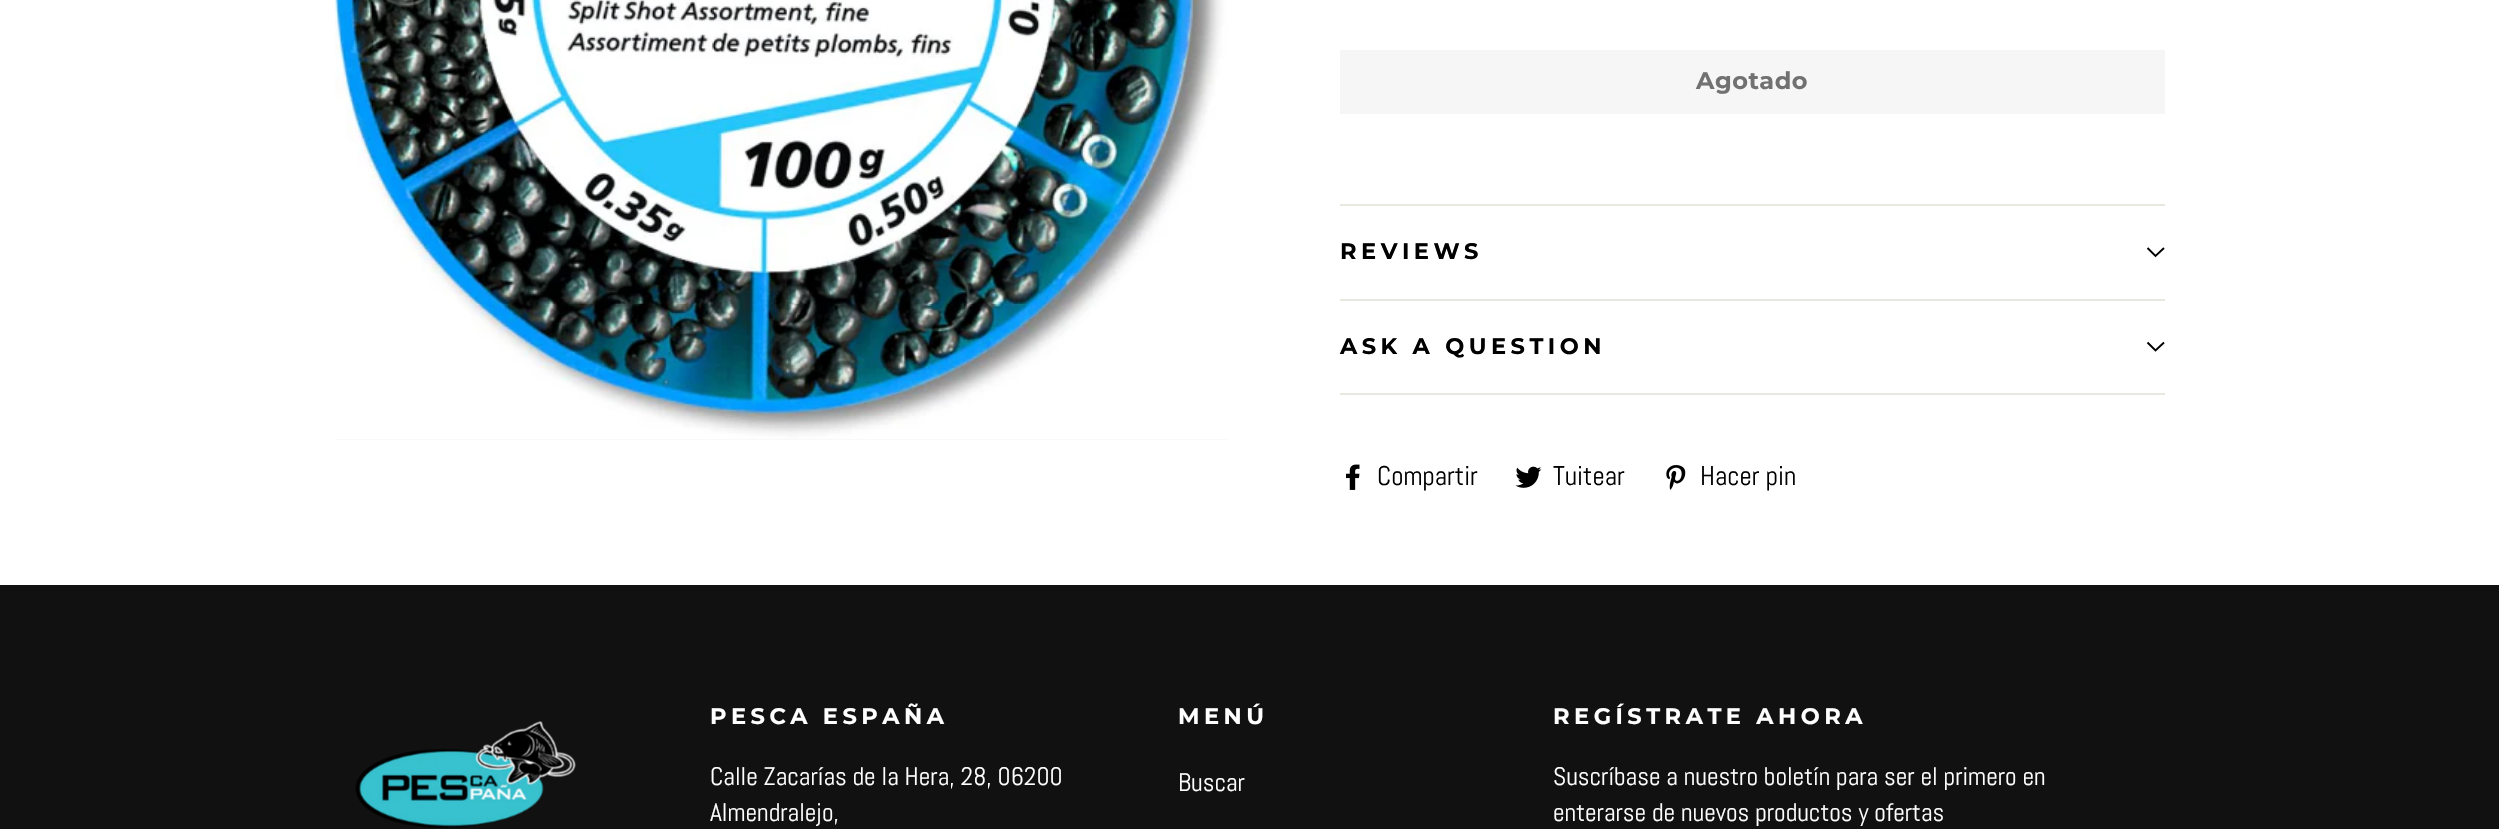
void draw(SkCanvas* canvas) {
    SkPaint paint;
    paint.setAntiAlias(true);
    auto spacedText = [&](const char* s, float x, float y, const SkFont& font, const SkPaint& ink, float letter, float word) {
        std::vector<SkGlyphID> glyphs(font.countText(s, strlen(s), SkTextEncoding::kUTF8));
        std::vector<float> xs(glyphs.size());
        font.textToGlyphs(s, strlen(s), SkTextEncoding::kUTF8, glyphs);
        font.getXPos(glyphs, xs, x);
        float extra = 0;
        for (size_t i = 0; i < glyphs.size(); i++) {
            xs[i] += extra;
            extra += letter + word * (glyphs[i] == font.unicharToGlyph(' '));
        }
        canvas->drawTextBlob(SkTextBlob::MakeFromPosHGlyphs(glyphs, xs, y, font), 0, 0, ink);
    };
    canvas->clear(0xFFFFFFFF);
    paint.setColor(0xFFF4F4F4);
    canvas->drawRect(SkRect::MakeXYWH(335, 0, 892, 440), paint);
    canvas->drawImageRect(SkImages::DeferredFromEncodedData(SkData::MakeFromFileName("img1.png")), SkRect::MakeXYWH(335, 0, 892, 440), SkSamplingOptions());
    paint.setColor(0xFFF6F6F6);
    canvas->drawRect(SkRect::MakeXYWH(1340, 50, 825, 64), paint);
    SkFont font1(fontMgr->matchFamilyStyle("Montserrat", SkFontStyle(100, SkFontStyle::kNormal_Width, SkFontStyle::kUpright_Slant)), 24);
    font1.setSubpixel(true);
    paint.setColor(0xFF717171);
    spacedText("Agotado", 1696, 89, font1, paint, 0.5f, 0);
    paint.setColor(0xFFE8E8E1);
    canvas->drawRect(SkRect::MakeXYWH(1340, 393, 825, 2), paint);
    canvas->drawRect(SkRect::MakeXYWH(1340, 204, 825, 2), paint);
    SkFont font2(fontMgr->matchFamilyStyle("Montserrat", SkFontStyle(100, SkFontStyle::kNormal_Width, SkFontStyle::kUpright_Slant)), 22.5f);
    font2.setSubpixel(true);
    paint.setColor(0xFF000000);
    spacedText("REVIEWS", 1340, 259, font2, paint, 4.5f, 0);
    paint.setStyle(SkPaint::kStroke_Style);
    paint.setStrokeWidth(1.9f);
    canvas->drawPath(SkPathBuilder().moveTo(2147.5f, 248).lineTo(2155.5f, 256).lineTo(2164, 248).detach(), paint);
    paint.setStyle(SkPaint::kFill_Style);
    paint.setColor(0xFFE8E8E1);
    canvas->drawRect(SkRect::MakeXYWH(1340, 299, 825, 2), paint);
    paint.setColor(0xFF000000);
    spacedText("ASK A QUESTION", 1340, 354, font2, paint, 4.5f, 0);
    paint.setStyle(SkPaint::kStroke_Style);
    canvas->drawPath(SkPathBuilder().moveTo(2147.5f, 342.5f).lineTo(2155.5f, 350.5f).lineTo(2164, 342.5f).detach(), paint);
    canvas->drawImageRect(SkImages::DeferredFromEncodedData(SkData::MakeFromFileName("img2.png")), SkRect::MakeXYWH(1346, 464, 14, 26), SkSamplingOptions());
    SkFont font3(fontMgr->matchFamilyStyle("Abel", SkFontStyle::Normal()), 27);
    font3.setSubpixel(true);
    paint.setStyle(SkPaint::kFill_Style);
    canvas->drawString("Compartir", 1377, 485, font3, paint);
    canvas->drawImageRect(SkImages::DeferredFromEncodedData(SkData::MakeFromFileName("img3.png")), SkRect::MakeXYWH(1515, 466, 27, 22), SkSamplingOptions());
    canvas->drawString("Tuitear", 1553, 485, font3, paint);
    canvas->drawImageRect(SkImages::DeferredFromEncodedData(SkData::MakeFromFileName("img4.png")), SkRect::MakeXYWH(1666, 465, 20, 25), SkSamplingOptions());
    canvas->drawString("Hacer pin", 1700, 485, font3, paint);
    paint.setColor(0xFF111111);
    canvas->drawRect(SkRect::MakeXYWH(0, 585, 2499, 244), paint);
    canvas->drawImageRect(SkImages::DeferredFromEncodedData(SkData::MakeFromFileName("img5.png")), SkRect::MakeXYWH(355, 721, 221, 107), SkSamplingOptions());
    paint.setColor(0xFFFFFFFF);
    spacedText("PESCA ESPAÑA", 710, 724, font2, paint, 4.5f, 0);
    SkFont font4(fontMgr->matchFamilyStyle("Abel", SkFontStyle::Normal()), 25.5f);
    font4.setSubpixel(true);
    canvas->drawString("Calle Zacarías de la Hera, 28, 06200", 710, 785, font4, paint);
    canvas->drawString("Almendralejo,", 710, 821, font4, paint);
    spacedText("MENÚ", 1178, 724, font2, paint, 4.5f, 0);
    canvas->drawString("Buscar", 1178, 791, font4, paint);
    spacedText("REGÍSTRATE AHORA", 1553, 724, font2, paint, 4.5f, 0);
    canvas->drawString("Suscríbase a nuestro boletín para ser el primero en", 1553, 785, font4, paint);
    canvas->drawString("enterarse de nuevos productos y ofertas", 1553, 821, font4, paint);
}
